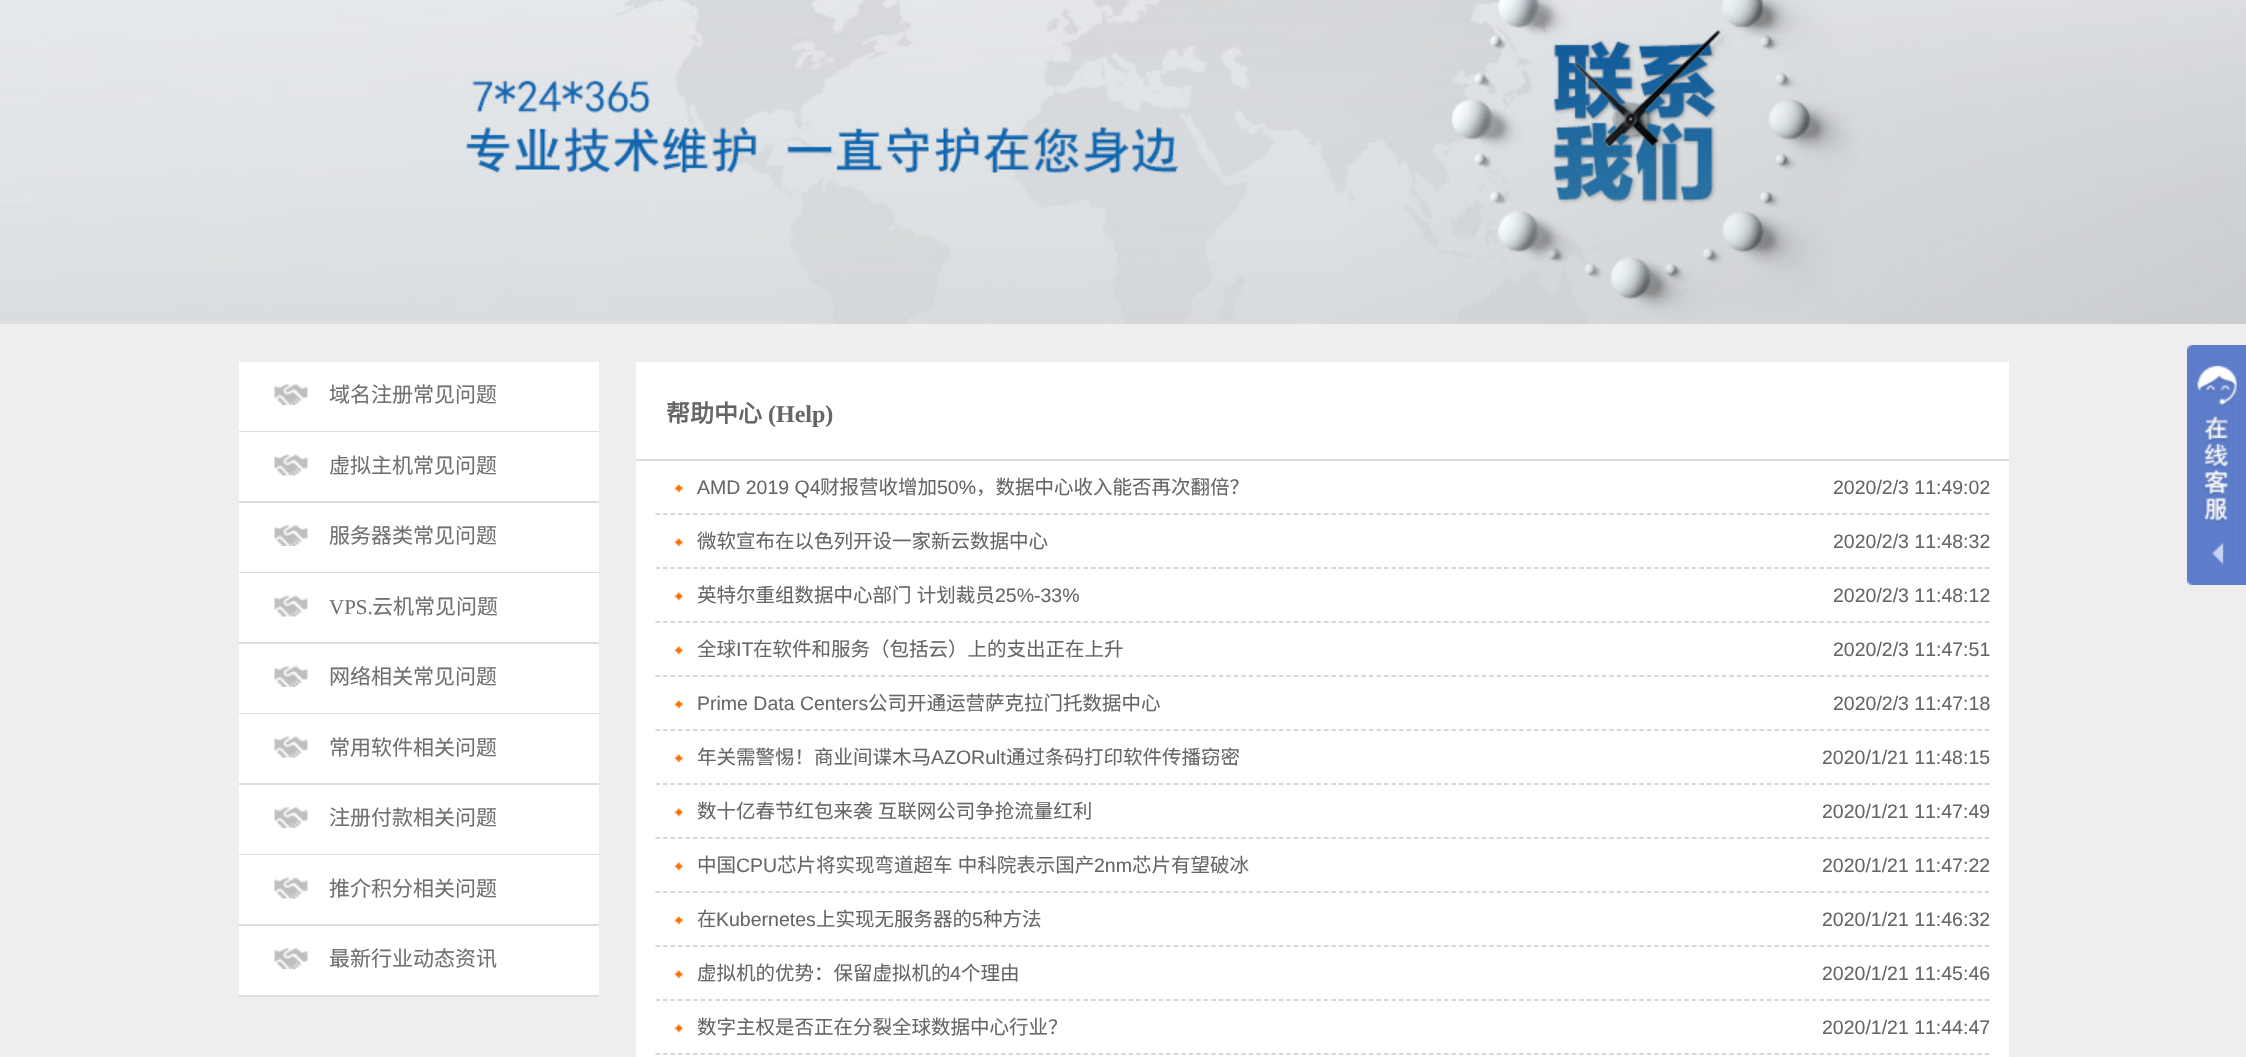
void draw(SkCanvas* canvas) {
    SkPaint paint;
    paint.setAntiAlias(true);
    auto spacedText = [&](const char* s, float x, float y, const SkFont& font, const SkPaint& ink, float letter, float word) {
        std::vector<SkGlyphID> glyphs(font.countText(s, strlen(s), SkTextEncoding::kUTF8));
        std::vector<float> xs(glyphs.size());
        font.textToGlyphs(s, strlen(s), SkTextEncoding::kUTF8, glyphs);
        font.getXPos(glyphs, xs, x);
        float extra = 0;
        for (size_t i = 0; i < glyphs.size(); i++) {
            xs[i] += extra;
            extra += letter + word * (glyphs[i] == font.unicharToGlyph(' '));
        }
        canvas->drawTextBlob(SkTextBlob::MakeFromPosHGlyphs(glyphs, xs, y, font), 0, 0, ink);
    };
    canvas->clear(0xFFEEEEEE);
    canvas->drawImageRect(SkImages::DeferredFromEncodedData(SkData::MakeFromFileName("img1.png")), SkRect::MakeXYWH(0, 0, 2246, 324), SkSamplingOptions());
    paint.setColor(0xFFFFFFFF);
    canvas->drawRect(SkRect::MakeXYWH(239, 362, 360, 69), paint);
    paint.setColor(0xFFDDDDDD);
    canvas->drawRect(SkRect::MakeXYWH(239, 431, 360, 1), paint);
    canvas->drawImageRect(SkImages::DeferredFromEncodedData(SkData::MakeFromFileName("img2.png")), SkRect::MakeXYWH(274, 383, 34, 22), SkSamplingOptions());
    SkFont font1(fontMgr->matchFamilyStyle("Noto Sans CJK SC", SkFontStyle::Normal()), 21);
    font1.setSubpixel(true);
    paint.setColor(0xFF707070);
    canvas->drawString("域名注册常见问题", 329, 402, font1, paint);
    paint.setColor(0xFFFFFFFF);
    canvas->drawRect(SkRect::MakeXYWH(239, 432, 360, 69), paint);
    paint.setColor(0xFFDDDDDD);
    canvas->drawRect(SkRect::MakeXYWH(239, 501, 360, 2), paint);
    canvas->drawImageRect(SkImages::DeferredFromEncodedData(SkData::MakeFromFileName("img3.png")), SkRect::MakeXYWH(274, 454, 34, 22), SkSamplingOptions());
    paint.setColor(0xFF707070);
    canvas->drawString("虚拟主机常见问题", 329, 473, font1, paint);
    paint.setColor(0xFFFFFFFF);
    canvas->drawRect(SkRect::MakeXYWH(239, 503, 360, 69), paint);
    paint.setColor(0xFFDDDDDD);
    canvas->drawRect(SkRect::MakeXYWH(239, 572, 360, 1), paint);
    canvas->drawImageRect(SkImages::DeferredFromEncodedData(SkData::MakeFromFileName("img2.png")), SkRect::MakeXYWH(274, 524, 34, 22), SkSamplingOptions());
    paint.setColor(0xFF707070);
    canvas->drawString("服务器类常见问题", 329, 543, font1, paint);
    paint.setColor(0xFFFFFFFF);
    canvas->drawRect(SkRect::MakeXYWH(239, 573, 360, 69), paint);
    paint.setColor(0xFFDDDDDD);
    canvas->drawRect(SkRect::MakeXYWH(239, 642, 360, 2), paint);
    canvas->drawImageRect(SkImages::DeferredFromEncodedData(SkData::MakeFromFileName("img3.png")), SkRect::MakeXYWH(274, 595, 34, 22), SkSamplingOptions());
    SkFont font2(fontMgr->matchFamilyStyle("Liberation Serif", SkFontStyle::Normal()), 21);
    font2.setSubpixel(true);
    paint.setColor(0xFF707070);
    canvas->drawString("VPS.", 329, 614, font2, paint);
    canvas->drawString("云机常见问题", 372, 614, font1, paint);
    paint.setColor(0xFFFFFFFF);
    canvas->drawRect(SkRect::MakeXYWH(239, 644, 360, 69), paint);
    paint.setColor(0xFFDDDDDD);
    canvas->drawRect(SkRect::MakeXYWH(239, 713, 360, 1), paint);
    canvas->drawImageRect(SkImages::DeferredFromEncodedData(SkData::MakeFromFileName("img2.png")), SkRect::MakeXYWH(274, 665, 34, 22), SkSamplingOptions());
    paint.setColor(0xFF707070);
    canvas->drawString("网络相关常见问题", 329, 684, font1, paint);
    paint.setColor(0xFFFFFFFF);
    canvas->drawRect(SkRect::MakeXYWH(239, 714, 360, 69), paint);
    paint.setColor(0xFFDDDDDD);
    canvas->drawRect(SkRect::MakeXYWH(239, 783, 360, 2), paint);
    canvas->drawImageRect(SkImages::DeferredFromEncodedData(SkData::MakeFromFileName("img3.png")), SkRect::MakeXYWH(274, 736, 34, 22), SkSamplingOptions());
    paint.setColor(0xFF707070);
    canvas->drawString("常用软件相关问题", 329, 755, font1, paint);
    paint.setColor(0xFFFFFFFF);
    canvas->drawRect(SkRect::MakeXYWH(239, 785, 360, 69), paint);
    paint.setColor(0xFFDDDDDD);
    canvas->drawRect(SkRect::MakeXYWH(239, 854, 360, 1), paint);
    canvas->drawImageRect(SkImages::DeferredFromEncodedData(SkData::MakeFromFileName("img2.png")), SkRect::MakeXYWH(274, 806, 34, 22), SkSamplingOptions());
    paint.setColor(0xFF707070);
    canvas->drawString("注册付款相关问题", 329, 825, font1, paint);
    paint.setColor(0xFFFFFFFF);
    canvas->drawRect(SkRect::MakeXYWH(239, 855, 360, 69), paint);
    paint.setColor(0xFFDDDDDD);
    canvas->drawRect(SkRect::MakeXYWH(239, 924, 360, 2), paint);
    canvas->drawImageRect(SkImages::DeferredFromEncodedData(SkData::MakeFromFileName("img3.png")), SkRect::MakeXYWH(274, 877, 34, 22), SkSamplingOptions());
    paint.setColor(0xFF707070);
    canvas->drawString("推介积分相关问题", 329, 896, font1, paint);
    paint.setColor(0xFFFFFFFF);
    canvas->drawRect(SkRect::MakeXYWH(239, 926, 360, 69), paint);
    paint.setColor(0xFFDDDDDD);
    canvas->drawRect(SkRect::MakeXYWH(239, 995, 360, 2), paint);
    canvas->drawImageRect(SkImages::DeferredFromEncodedData(SkData::MakeFromFileName("img2.png")), SkRect::MakeXYWH(274, 947, 34, 22), SkSamplingOptions());
    paint.setColor(0xFF707070);
    canvas->drawString("最新行业动态资讯", 329, 966, font1, paint);
    paint.setColor(0xFFFFFFFF);
    canvas->drawRect(SkRect::MakeXYWH(636, 362, 1373, 695), paint);
    paint.setColor(0xFFDDDDDD);
    canvas->drawRect(SkRect::MakeXYWH(636, 459, 1373, 2), paint);
    SkFont font3(fontMgr->matchFamilyStyle("Noto Sans CJK SC", SkFontStyle::Bold()), 24);
    font3.setSubpixel(true);
    paint.setColor(0xFF666666);
    canvas->drawString("帮助中心", 666, 422, font3, paint);
    SkFont font4(fontMgr->matchFamilyStyle("Liberation Serif", SkFontStyle::Bold()), 24);
    font4.setSubpixel(true);
    canvas->drawString("(Help)", 768, 422, font4, paint);
    canvas->drawImageRect(SkImages::DeferredFromEncodedData(SkData::MakeFromFileName("img4.png")), SkRect::MakeXYWH(674, 484, 9, 9), SkSamplingOptions());
    paint.setStyle(SkPaint::kStroke_Style);
    paint.setStrokeWidth(1.5f);
    paint.setColor(0xFFCCCCCC);
    paint.setPathEffect(SkDashPathEffect::Make({{4.5f, 3.01f}}, 0));
    canvas->drawPath(SkPathBuilder().moveTo(655.5f, 514).lineTo(1990.5f, 514).detach(), paint);
    paint.setPathEffect(nullptr);
    SkFont font5(fontMgr->matchFamilyStyle("Liberation Sans", SkFontStyle::Normal()), 19.5f);
    font5.setSubpixel(true);
    paint.setStyle(SkPaint::kFill_Style);
    paint.setColor(0xFF666666);
    canvas->drawString("AMD 2019 Q4", 697, 494, font5, paint);
    SkFont font6(fontMgr->matchFamilyStyle("Noto Sans CJK SC", SkFontStyle::Normal()), 19.5f);
    font6.setSubpixel(true);
    canvas->drawString("财报营收增加", 820, 494, font6, paint);
    canvas->drawString("50%", 937, 494, font5, paint);
    canvas->drawString("，数据中心收入能否再次翻倍？", 976, 494, font6, paint);
    canvas->drawString("2020/2/3 11:49:02", 1833, 494, font5, paint);
    canvas->drawImageRect(SkImages::DeferredFromEncodedData(SkData::MakeFromFileName("img4.png")), SkRect::MakeXYWH(674, 538, 9, 9), SkSamplingOptions());
    paint.setStyle(SkPaint::kStroke_Style);
    paint.setColor(0xFFCCCCCC);
    paint.setPathEffect(SkDashPathEffect::Make({{4.5f, 3.01f}}, 0));
    canvas->drawPath(SkPathBuilder().moveTo(655.5f, 568).lineTo(1990.5f, 568).detach(), paint);
    paint.setPathEffect(nullptr);
    paint.setStyle(SkPaint::kFill_Style);
    paint.setColor(0xFF666666);
    canvas->drawString("微软宣布在以色列开设一家新云数据中心", 697, 548, font6, paint);
    canvas->drawString("2020/2/3 11:48:32", 1833, 548, font5, paint);
    canvas->drawImageRect(SkImages::DeferredFromEncodedData(SkData::MakeFromFileName("img4.png")), SkRect::MakeXYWH(674, 592, 9, 9), SkSamplingOptions());
    paint.setStyle(SkPaint::kStroke_Style);
    paint.setColor(0xFFCCCCCC);
    paint.setPathEffect(SkDashPathEffect::Make({{4.5f, 3.01f}}, 0));
    canvas->drawPath(SkPathBuilder().moveTo(655.5f, 622).lineTo(1990.5f, 622).detach(), paint);
    paint.setPathEffect(nullptr);
    paint.setStyle(SkPaint::kFill_Style);
    paint.setColor(0xFF666666);
    spacedText("英特尔重组数据中心部门 计划裁员", 697, 602, font6, paint, 0, 1);
    canvas->drawString("25%-33%", 995, 602, font5, paint);
    canvas->drawString("2020/2/3 11:48:12", 1833, 602, font5, paint);
    canvas->drawImageRect(SkImages::DeferredFromEncodedData(SkData::MakeFromFileName("img4.png")), SkRect::MakeXYWH(674, 646, 9, 9), SkSamplingOptions());
    paint.setStyle(SkPaint::kStroke_Style);
    paint.setColor(0xFFCCCCCC);
    paint.setPathEffect(SkDashPathEffect::Make({{4.5f, 3.01f}}, 0));
    canvas->drawPath(SkPathBuilder().moveTo(655.5f, 676).lineTo(1990.5f, 676).detach(), paint);
    paint.setPathEffect(nullptr);
    paint.setStyle(SkPaint::kFill_Style);
    paint.setColor(0xFF666666);
    canvas->drawString("全球", 697, 656, font6, paint);
    canvas->drawString("IT", 736, 656, font5, paint);
    canvas->drawString("在软件和服务（包括云）上的支出正在上升", 753, 656, font6, paint);
    canvas->drawString("2020/2/3 11:47:51", 1833, 656, font5, paint);
    canvas->drawImageRect(SkImages::DeferredFromEncodedData(SkData::MakeFromFileName("img4.png")), SkRect::MakeXYWH(674, 700, 9, 9), SkSamplingOptions());
    paint.setStyle(SkPaint::kStroke_Style);
    paint.setColor(0xFFCCCCCC);
    paint.setPathEffect(SkDashPathEffect::Make({{4.5f, 3.01f}}, 0));
    canvas->drawPath(SkPathBuilder().moveTo(655.5f, 730).lineTo(1990.5f, 730).detach(), paint);
    paint.setPathEffect(nullptr);
    paint.setStyle(SkPaint::kFill_Style);
    paint.setColor(0xFF666666);
    canvas->drawString("Prime Data Centers", 697, 710, font5, paint);
    canvas->drawString("公司开通运营萨克拉门托数据中心", 868, 710, font6, paint);
    canvas->drawString("2020/2/3 11:47:18", 1833, 710, font5, paint);
    canvas->drawImageRect(SkImages::DeferredFromEncodedData(SkData::MakeFromFileName("img4.png")), SkRect::MakeXYWH(674, 754, 9, 9), SkSamplingOptions());
    paint.setStyle(SkPaint::kStroke_Style);
    paint.setColor(0xFFCCCCCC);
    paint.setPathEffect(SkDashPathEffect::Make({{4.5f, 3.01f}}, 0));
    canvas->drawPath(SkPathBuilder().moveTo(655.5f, 784).lineTo(1990.5f, 784).detach(), paint);
    paint.setPathEffect(nullptr);
    paint.setStyle(SkPaint::kFill_Style);
    paint.setColor(0xFF666666);
    canvas->drawString("年关需警惕！商业间谍木马", 697, 764, font6, paint);
    canvas->drawString("AZORult", 931, 764, font5, paint);
    canvas->drawString("通过条码打印软件传播窃密", 1006, 764, font6, paint);
    canvas->drawString("2020/1/21 11:48:15", 1822, 764, font5, paint);
    canvas->drawImageRect(SkImages::DeferredFromEncodedData(SkData::MakeFromFileName("img4.png")), SkRect::MakeXYWH(674, 808, 9, 9), SkSamplingOptions());
    paint.setStyle(SkPaint::kStroke_Style);
    paint.setColor(0xFFCCCCCC);
    paint.setPathEffect(SkDashPathEffect::Make({{4.5f, 3.01f}}, 0));
    canvas->drawPath(SkPathBuilder().moveTo(655.5f, 838).lineTo(1990.5f, 838).detach(), paint);
    paint.setPathEffect(nullptr);
    paint.setStyle(SkPaint::kFill_Style);
    paint.setColor(0xFF666666);
    spacedText("数十亿春节红包来袭 互联网公司争抢流量红利", 697, 818, font6, paint, 0, 1);
    canvas->drawString("2020/1/21 11:47:49", 1822, 818, font5, paint);
    canvas->drawImageRect(SkImages::DeferredFromEncodedData(SkData::MakeFromFileName("img4.png")), SkRect::MakeXYWH(674, 862, 9, 9), SkSamplingOptions());
    paint.setStyle(SkPaint::kStroke_Style);
    paint.setColor(0xFFCCCCCC);
    paint.setPathEffect(SkDashPathEffect::Make({{4.5f, 3.01f}}, 0));
    canvas->drawPath(SkPathBuilder().moveTo(655.5f, 892).lineTo(1990.5f, 892).detach(), paint);
    paint.setPathEffect(nullptr);
    paint.setStyle(SkPaint::kFill_Style);
    paint.setColor(0xFF666666);
    canvas->drawString("中国", 697, 872, font6, paint);
    canvas->drawString("CPU", 736, 872, font5, paint);
    spacedText("芯片将实现弯道超车 中科院表示国产", 777, 872, font6, paint, 0, 1);
    canvas->drawString("2nm", 1094, 872, font5, paint);
    canvas->drawString("芯片有望破冰", 1132, 872, font6, paint);
    canvas->drawString("2020/1/21 11:47:22", 1822, 872, font5, paint);
    canvas->drawImageRect(SkImages::DeferredFromEncodedData(SkData::MakeFromFileName("img4.png")), SkRect::MakeXYWH(674, 916, 9, 9), SkSamplingOptions());
    paint.setStyle(SkPaint::kStroke_Style);
    paint.setColor(0xFFCCCCCC);
    paint.setPathEffect(SkDashPathEffect::Make({{4.5f, 3.01f}}, 0));
    canvas->drawPath(SkPathBuilder().moveTo(655.5f, 946).lineTo(1990.5f, 946).detach(), paint);
    paint.setPathEffect(nullptr);
    paint.setStyle(SkPaint::kFill_Style);
    paint.setColor(0xFF666666);
    canvas->drawString("在", 697, 926, font6, paint);
    canvas->drawString("Kubernetes", 716, 926, font5, paint);
    canvas->drawString("上实现无服务器的", 816, 926, font6, paint);
    canvas->drawString("5", 972, 926, font5, paint);
    canvas->drawString("种方法", 983, 926, font6, paint);
    canvas->drawString("2020/1/21 11:46:32", 1822, 926, font5, paint);
    canvas->drawImageRect(SkImages::DeferredFromEncodedData(SkData::MakeFromFileName("img4.png")), SkRect::MakeXYWH(674, 970, 9, 9), SkSamplingOptions());
    paint.setStyle(SkPaint::kStroke_Style);
    paint.setColor(0xFFCCCCCC);
    paint.setPathEffect(SkDashPathEffect::Make({{4.5f, 3.01f}}, 0));
    canvas->drawPath(SkPathBuilder().moveTo(655.5f, 1000).lineTo(1990.5f, 1000).detach(), paint);
    paint.setPathEffect(nullptr);
    paint.setStyle(SkPaint::kFill_Style);
    paint.setColor(0xFF666666);
    canvas->drawString("虚拟机的优势：保留虚拟机的", 697, 980, font6, paint);
    canvas->drawString("4", 950, 980, font5, paint);
    canvas->drawString("个理由", 961, 980, font6, paint);
    canvas->drawString("2020/1/21 11:45:46", 1822, 980, font5, paint);
    canvas->drawImageRect(SkImages::DeferredFromEncodedData(SkData::MakeFromFileName("img4.png")), SkRect::MakeXYWH(674, 1024, 9, 9), SkSamplingOptions());
    paint.setStyle(SkPaint::kStroke_Style);
    paint.setColor(0xFFCCCCCC);
    paint.setPathEffect(SkDashPathEffect::Make({{4.5f, 3.01f}}, 0));
    canvas->drawPath(SkPathBuilder().moveTo(655.5f, 1054).lineTo(1990.5f, 1054).detach(), paint);
    paint.setPathEffect(nullptr);
    paint.setStyle(SkPaint::kFill_Style);
    paint.setColor(0xFF666666);
    canvas->drawString("数字主权是否正在分裂全球数据中心行业？", 697, 1034, font6, paint);
    canvas->drawString("2020/1/21 11:44:47", 1822, 1034, font5, paint);
    canvas->drawImageRect(SkImages::DeferredFromEncodedData(SkData::MakeFromFileName("img5.png")), SkRect::MakeXYWH(2187, 345, 59, 240), SkSamplingOptions());
}
